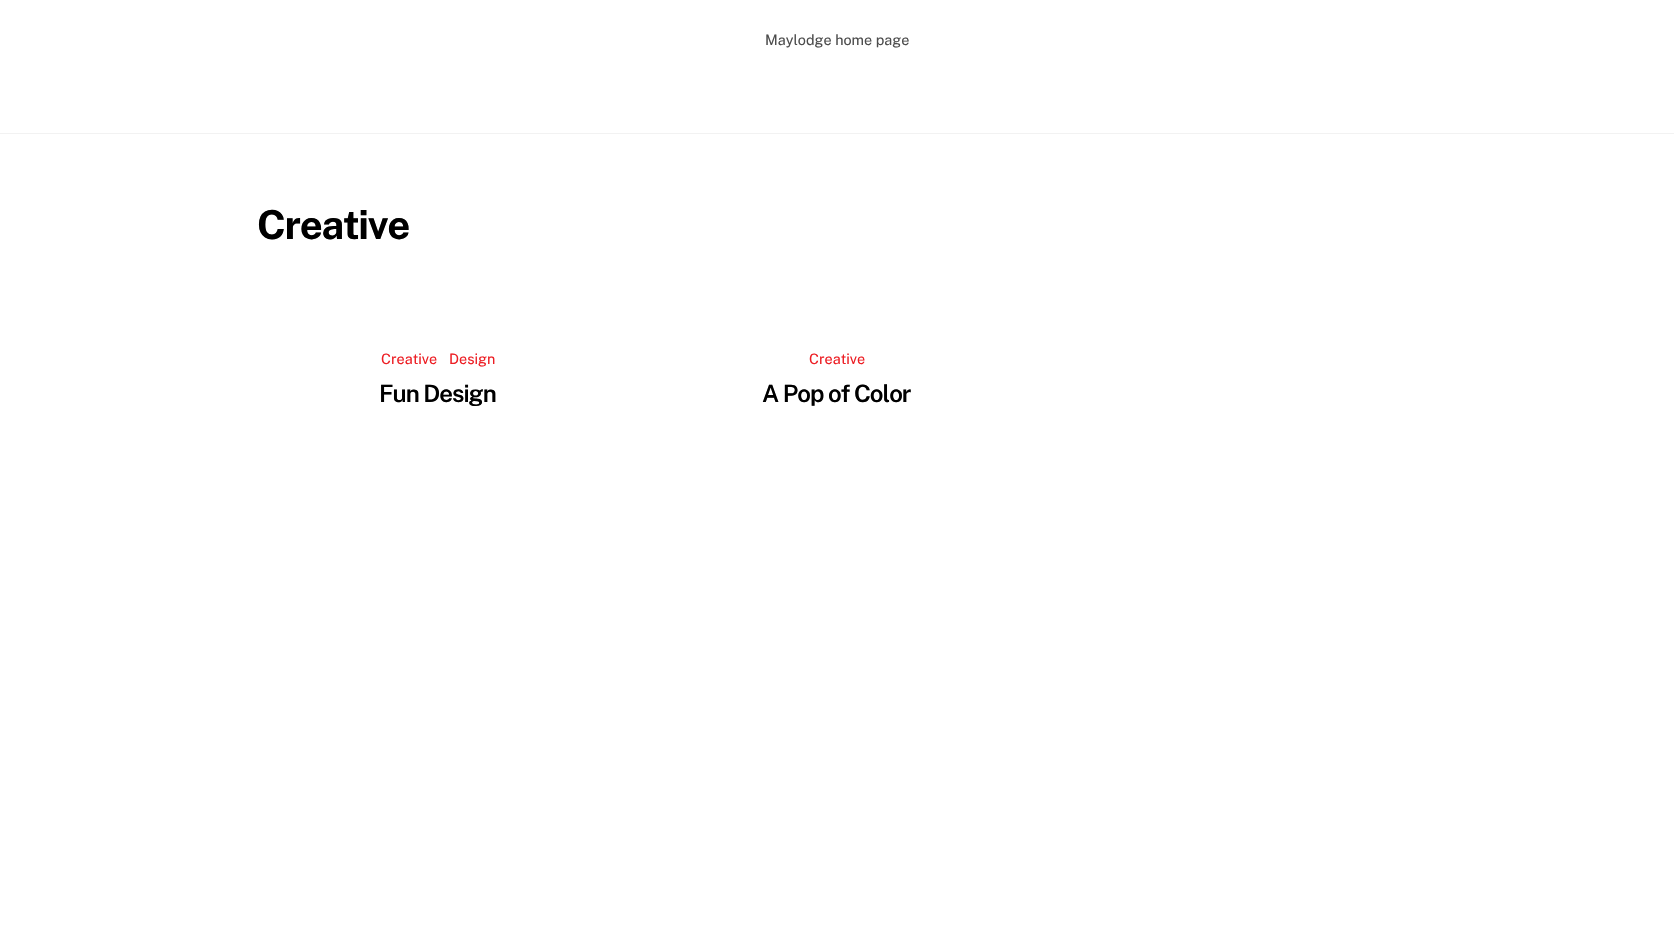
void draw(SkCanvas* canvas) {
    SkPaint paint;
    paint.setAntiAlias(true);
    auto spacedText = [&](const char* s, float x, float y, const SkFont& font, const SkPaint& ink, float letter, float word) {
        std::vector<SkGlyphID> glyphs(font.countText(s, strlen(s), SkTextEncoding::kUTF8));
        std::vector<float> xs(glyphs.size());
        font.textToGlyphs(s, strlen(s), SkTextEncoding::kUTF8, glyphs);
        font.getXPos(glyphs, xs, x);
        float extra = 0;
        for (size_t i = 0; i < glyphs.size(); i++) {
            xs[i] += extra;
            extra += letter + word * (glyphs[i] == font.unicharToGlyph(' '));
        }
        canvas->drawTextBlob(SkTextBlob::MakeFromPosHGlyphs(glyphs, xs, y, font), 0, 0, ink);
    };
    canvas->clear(0xFFFFFFFF);
    paint.setColor(0xFFF2F2F2);
    canvas->drawRect(SkRect::MakeXYWH(0, 133, 1674, 1), paint);
    SkFont font1(fontMgr->matchFamilyStyle("Public Sans", SkFontStyle::Normal()), 14.4f);
    font1.setSubpixel(true);
    paint.setColor(0xFF4D4D4D);
    canvas->drawString("Maylodge home page", 765, 45, font1, paint);
    SkFont font2(fontMgr->matchFamilyStyle("Public Sans", SkFontStyle::Bold()), 40);
    font2.setSubpixel(true);
    paint.setColor(0xFF000000);
    spacedText("Creative", 257, 239, font2, paint, -1.25f, 0);
    paint.setColor(0xFFED1E24);
    canvas->drawString("Creative", 381, 364, font1, paint);
    canvas->drawString("Design", 449, 364, font1, paint);
    SkFont font3(fontMgr->matchFamilyStyle("Public Sans", SkFontStyle(600, SkFontStyle::kNormal_Width, SkFontStyle::kUpright_Slant)), 24);
    font3.setSubpixel(true);
    paint.setColor(0xFF000000);
    spacedText("Fun Design", 379, 402, font3, paint, -1, 0);
    paint.setColor(0xFFED1E24);
    canvas->drawString("Creative", 809, 364, font1, paint);
    paint.setColor(0xFF000000);
    spacedText("A Pop of Color", 762, 402, font3, paint, -1, 0);
}
